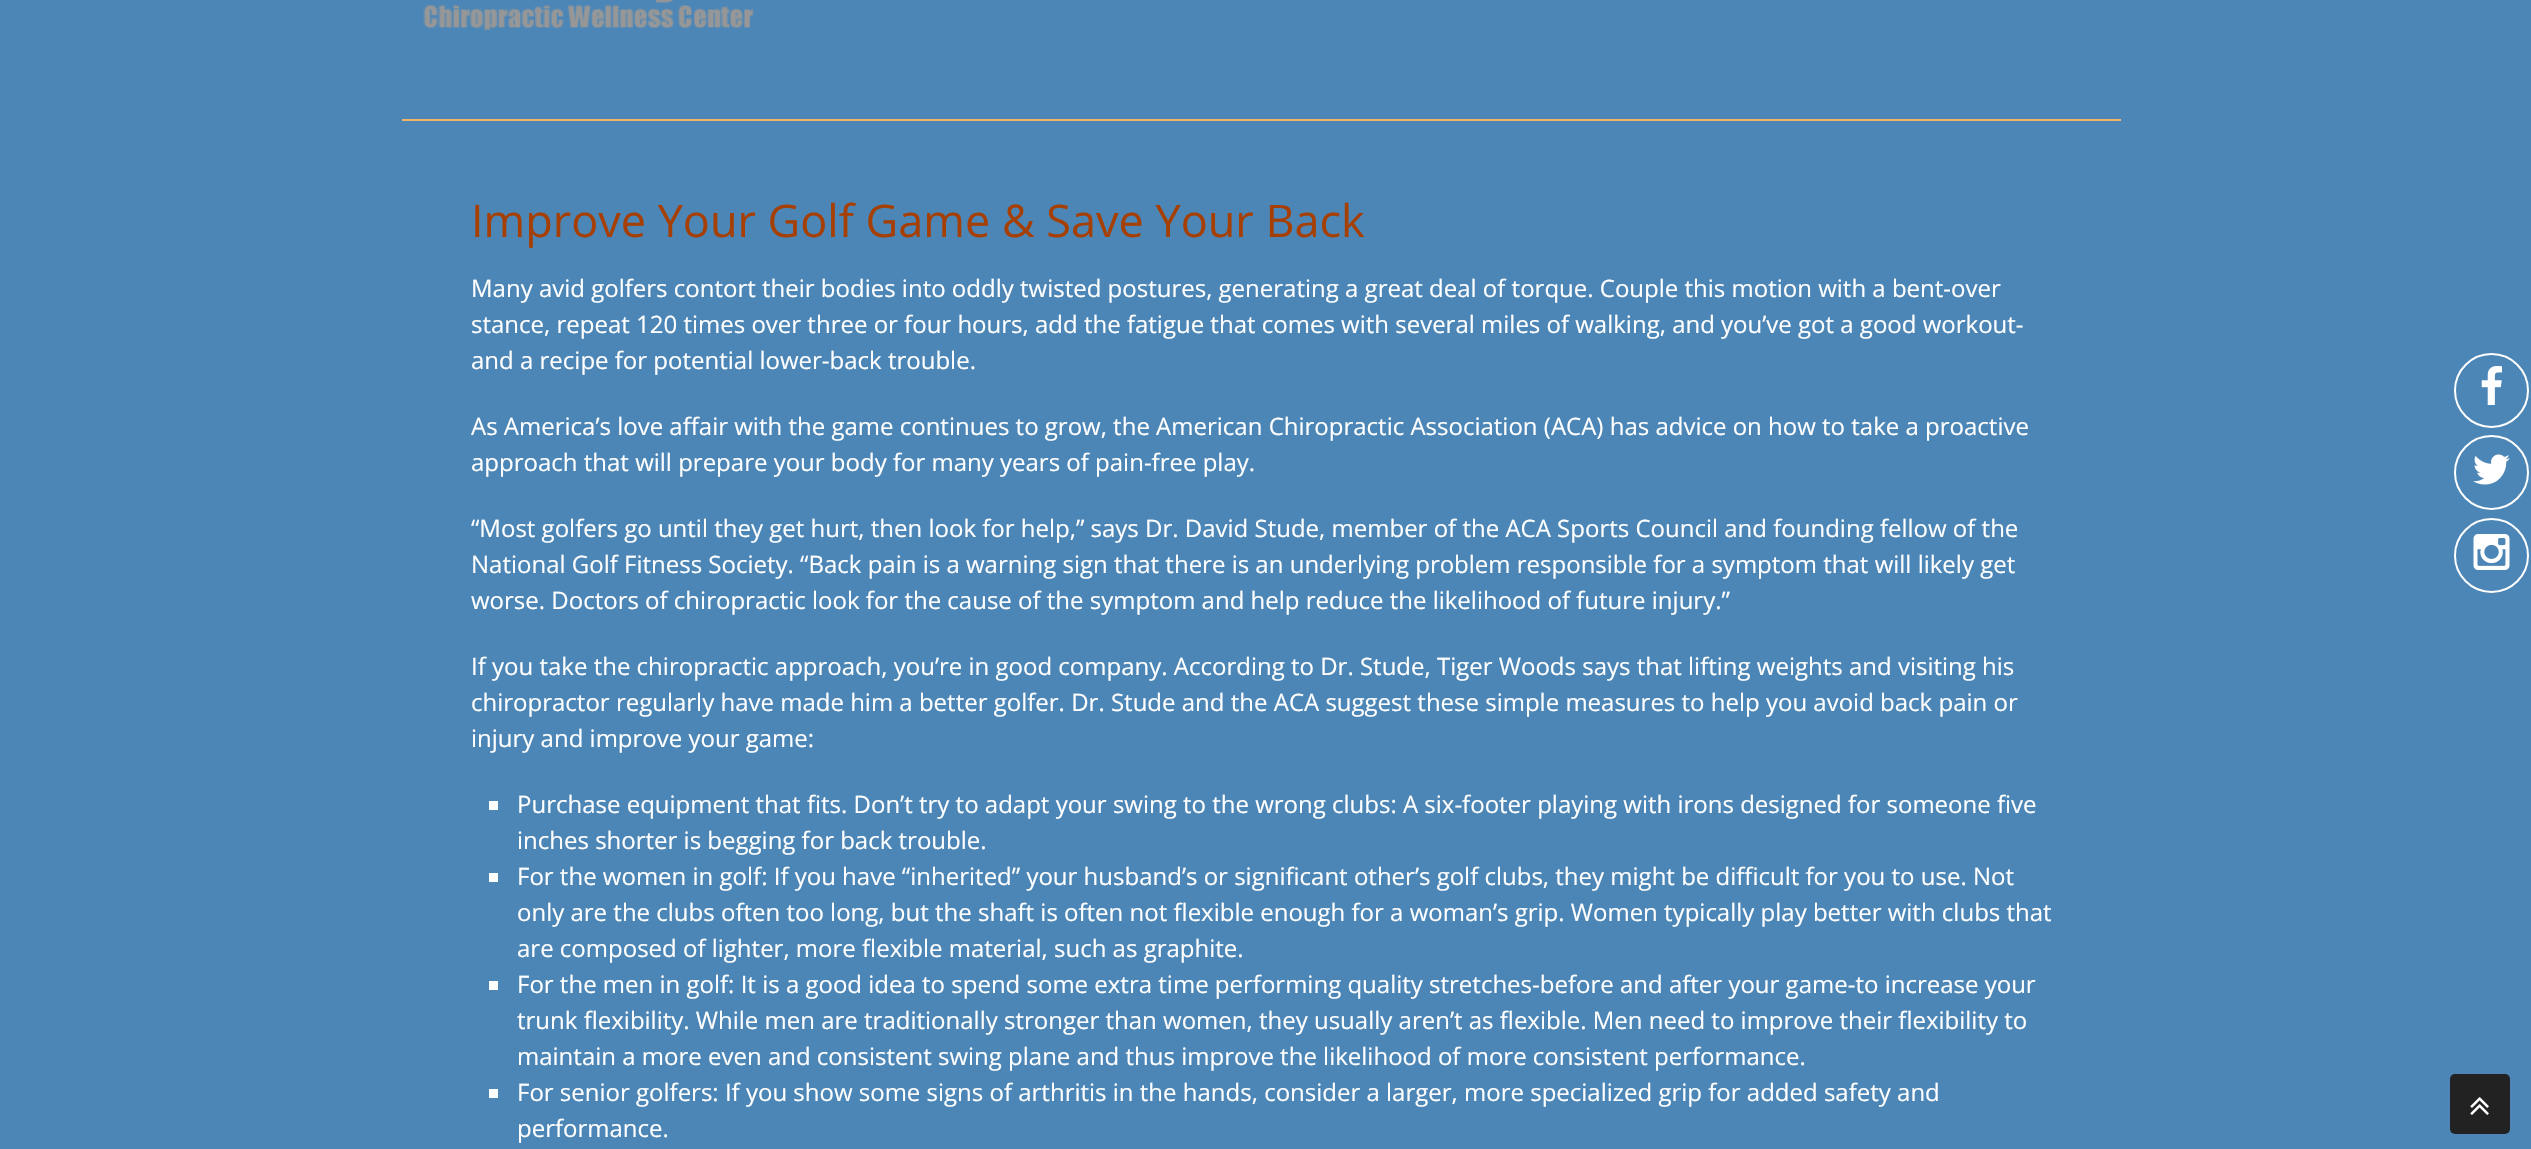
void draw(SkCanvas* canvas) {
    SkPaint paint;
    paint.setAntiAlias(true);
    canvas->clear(0xFF4C86B6);
    canvas->drawImageRect(SkImages::DeferredFromEncodedData(SkData::MakeFromFileName("img1.png")), SkRect::MakeXYWH(423, 0, 331, 31), SkSamplingOptions());
    paint.setColor(0xFFF2B366);
    canvas->drawRect(SkRect::MakeXYWH(402, 119, 1719, 2), paint);
    SkFont font1(fontMgr->matchFamilyStyle("Open Sans", SkFontStyle::Normal()), 45);
    font1.setSubpixel(true);
    paint.setColor(0xFFA63F03);
    canvas->drawString("Improve Your Golf Game & Save Your Back", 471, 237, font1, paint);
    SkFont font2(fontMgr->matchFamilyStyle("Open Sans", SkFontStyle::Normal()), 24);
    font2.setSubpixel(true);
    paint.setColor(0xFFFFFFFF);
    canvas->drawString("Many avid golfers contort their bodies into oddly twisted postures, generating a great deal of torque. Couple this motion with a bent-over", 471, 297, font2, paint);
    canvas->drawString("stance, repeat 120 times over three or four hours, add the fatigue that comes with several miles of walking, and you’ve got a good workout-", 471, 333, font2, paint);
    canvas->drawString("and a recipe for potential lower-back trouble.", 471, 369, font2, paint);
    canvas->drawString("As America’s love affair with the game continues to grow, the American Chiropractic Association (ACA) has advice on how to take a proactive", 471, 435, font2, paint);
    canvas->drawString("approach that will prepare your body for many years of pain-free play.", 471, 471, font2, paint);
    canvas->drawString("“Most golfers go until they get hurt, then look for help,” says Dr. David Stude, member of the ACA Sports Council and founding fellow of the", 471, 537, font2, paint);
    canvas->drawString("National Golf Fitness Society. “Back pain is a warning sign that there is an underlying problem responsible for a symptom that will likely get", 471, 573, font2, paint);
    canvas->drawString("worse. Doctors of chiropractic look for the cause of the symptom and help reduce the likelihood of future injury.”", 471, 609, font2, paint);
    canvas->drawString("If you take the chiropractic approach, you’re in good company. According to Dr. Stude, Tiger Woods says that lifting weights and visiting his", 471, 675, font2, paint);
    canvas->drawString("chiropractor regularly have made him a better golfer. Dr. Stude and the ACA suggest these simple measures to help you avoid back pain or", 471, 711, font2, paint);
    canvas->drawString("injury and improve your game:", 471, 747, font2, paint);
    canvas->drawRect(SkRect::MakeXYWH(489, 801, 9, 9), paint);
    canvas->drawString("Purchase equipment that fits. Don’t try to adapt your swing to the wrong clubs: A six-footer playing with irons designed for someone five", 517, 813, font2, paint);
    canvas->drawString("inches shorter is begging for back trouble.", 517, 849, font2, paint);
    canvas->drawRect(SkRect::MakeXYWH(489, 873, 9, 9), paint);
    canvas->drawString("For the women in golf: If you have “inherited” your husband’s or significant other’s golf clubs, they might be difficult for you to use. Not", 517, 885, font2, paint);
    canvas->drawString("only are the clubs often too long, but the shaft is often not flexible enough for a woman’s grip. Women typically play better with clubs that", 517, 921, font2, paint);
    canvas->drawString("are composed of lighter, more flexible material, such as graphite.", 517, 957, font2, paint);
    canvas->drawRect(SkRect::MakeXYWH(489, 981, 9, 9), paint);
    canvas->drawString("For the men in golf: It is a good idea to spend some extra time performing quality stretches-before and after your game-to increase your", 517, 993, font2, paint);
    canvas->drawString("trunk flexibility. While men are traditionally stronger than women, they usually aren’t as flexible. Men need to improve their flexibility to", 517, 1029, font2, paint);
    canvas->drawString("maintain a more even and consistent swing plane and thus improve the likelihood of more consistent performance.", 517, 1065, font2, paint);
    canvas->drawRect(SkRect::MakeXYWH(489, 1089, 9, 9), paint);
    canvas->drawString("For senior golfers: If you show some signs of arthritis in the hands, consider a larger, more specialized grip for added safety and", 517, 1101, font2, paint);
    canvas->drawString("performance.", 517, 1137, font2, paint);
    paint.setStyle(SkPaint::kStroke_Style);
    paint.setStrokeWidth(2);
    canvas->drawCircle(2491.5f, 390.5f, 36.5f, paint);
    canvas->drawImageRect(SkImages::DeferredFromEncodedData(SkData::MakeFromFileName("img2.png")), SkRect::MakeXYWH(2481, 366, 21, 39), SkSamplingOptions());
    canvas->drawCircle(2491.5f, 472.5f, 36.5f, paint);
    canvas->drawImageRect(SkImages::DeferredFromEncodedData(SkData::MakeFromFileName("img3.png")), SkRect::MakeXYWH(2473, 454, 37, 31), SkSamplingOptions());
    canvas->drawCircle(2491.5f, 555.5f, 36.5f, paint);
    canvas->drawImageRect(SkImages::DeferredFromEncodedData(SkData::MakeFromFileName("img4.png")), SkRect::MakeXYWH(2473, 534, 37, 36), SkSamplingOptions());
    paint.setStyle(SkPaint::kFill_Style);
    paint.setColor(0xFF222222);
    canvas->drawRoundRect(SkRect::MakeXYWH(2450, 1074, 60, 60), 5, 5, paint);
    canvas->drawImageRect(SkImages::DeferredFromEncodedData(SkData::MakeFromFileName("img5.png")), SkRect::MakeXYWH(2470, 1097, 19, 18), SkSamplingOptions());
}
